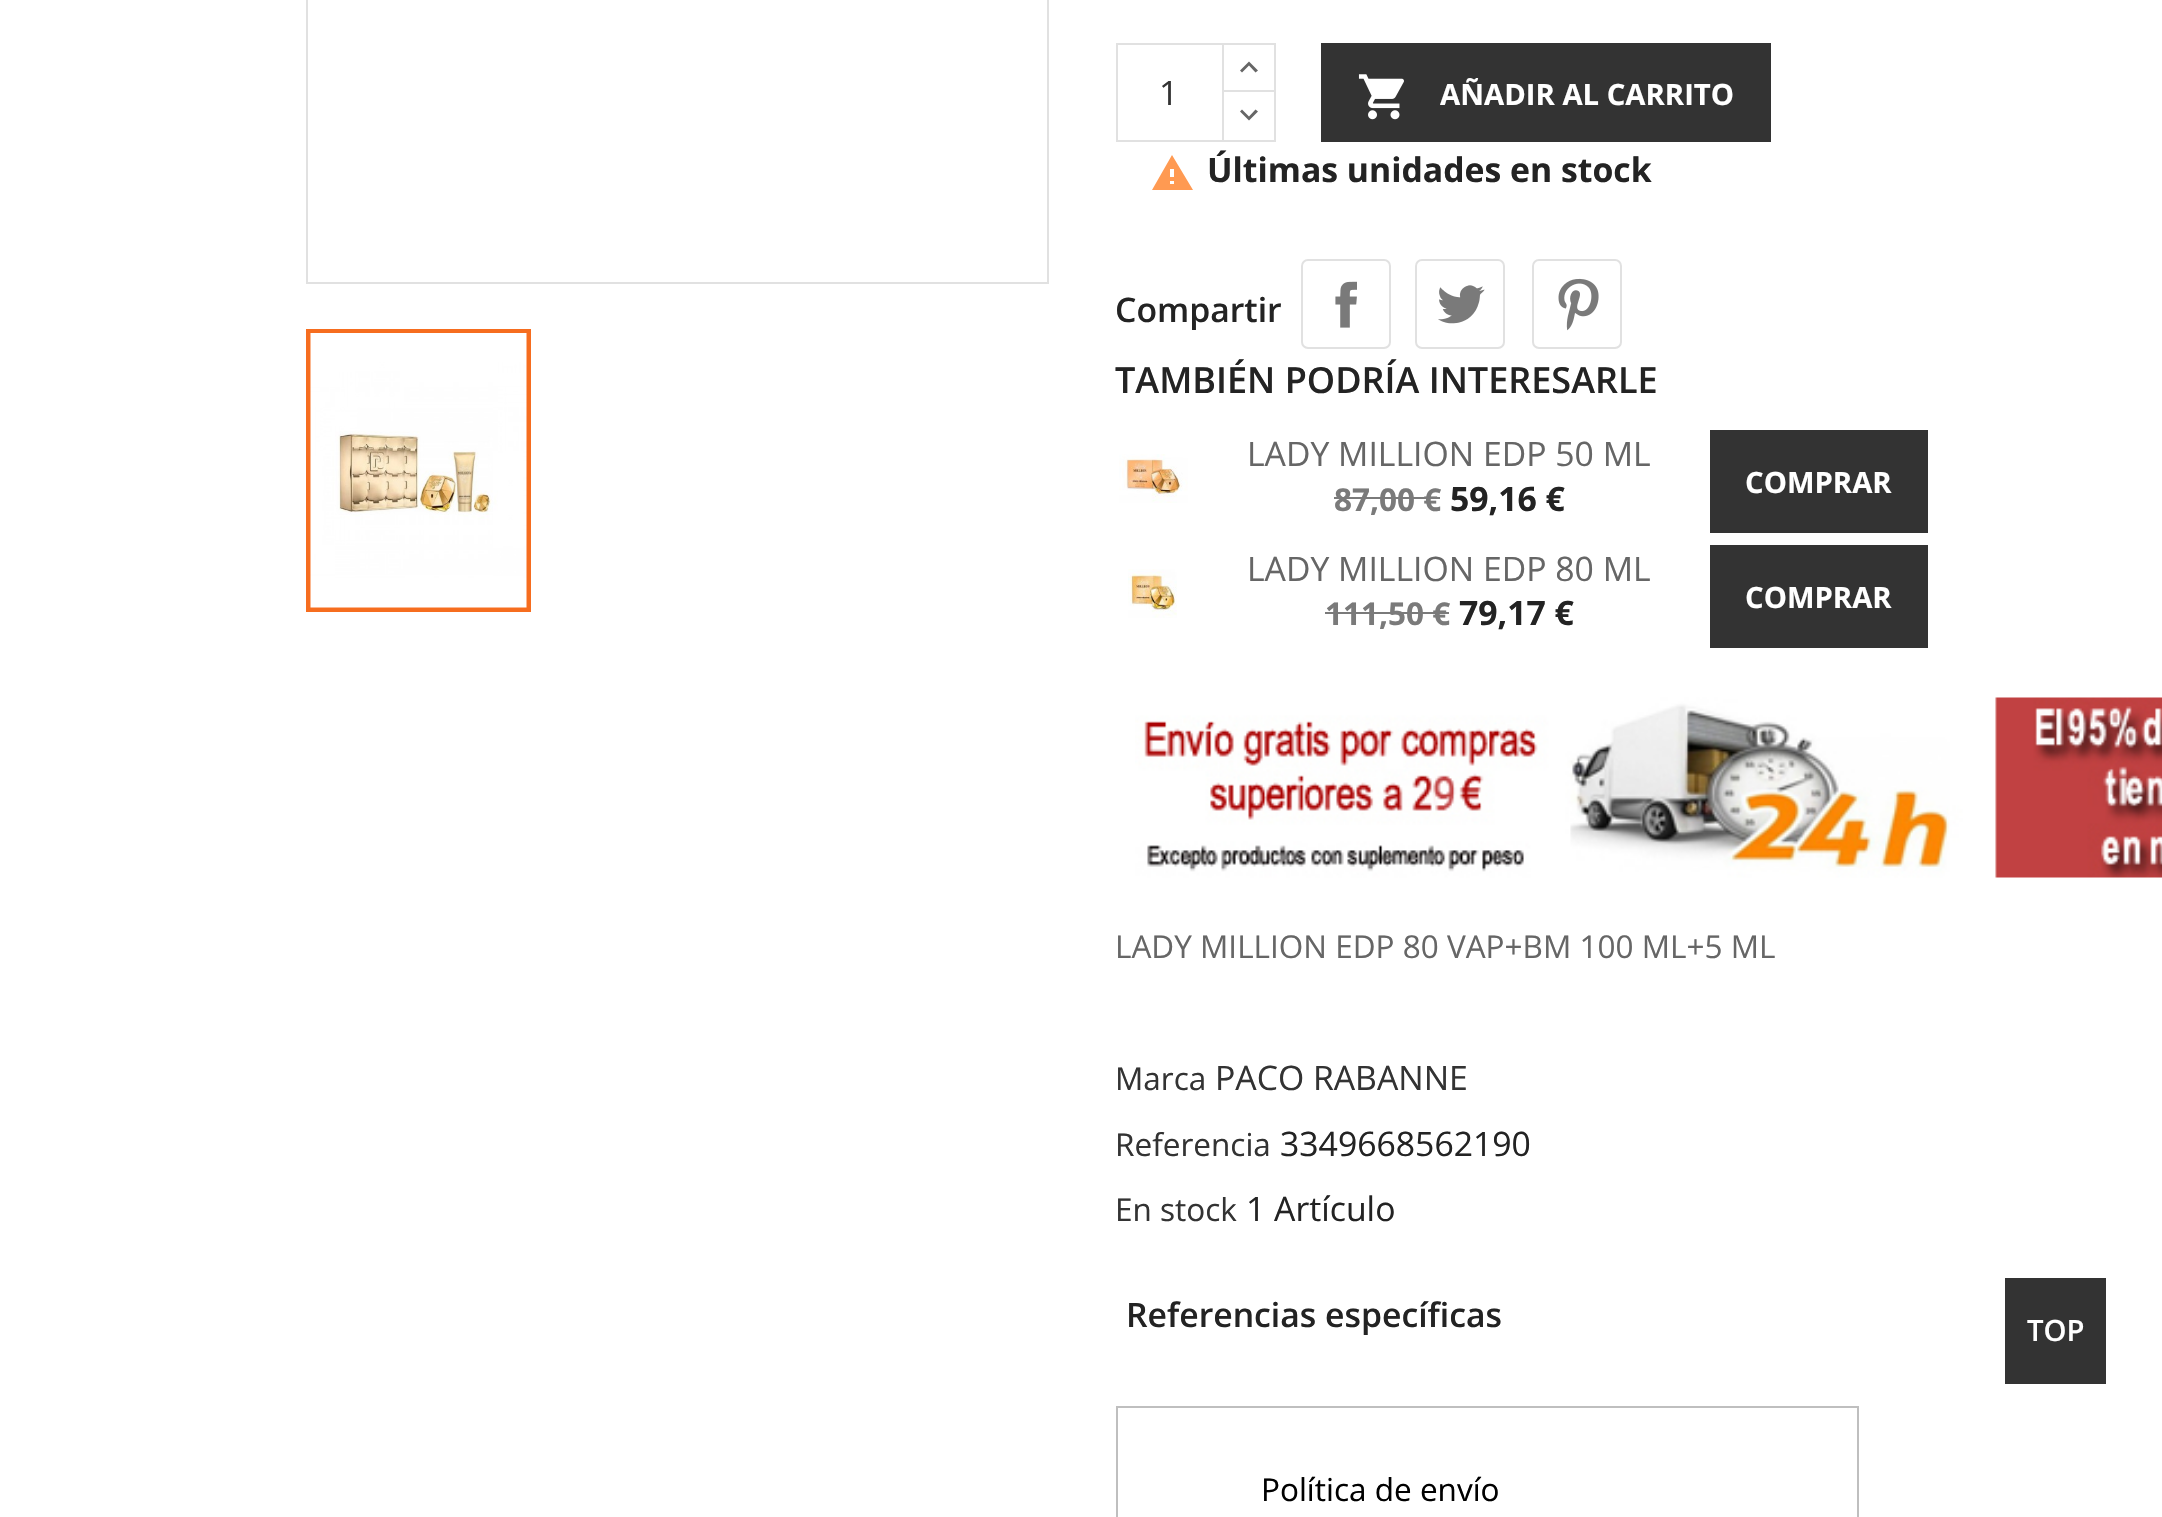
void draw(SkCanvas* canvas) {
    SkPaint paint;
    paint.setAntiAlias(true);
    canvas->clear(0xFFFFFFFF);
    paint.setStyle(SkPaint::kStroke_Style);
    paint.setStrokeWidth(2);
    paint.setColor(0xFFE1E1E1);
    canvas->drawRect(SkRect::MakeXYWH(307, -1, 741, 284), paint);
    paint.setStrokeWidth(5);
    paint.setColor(0xFFF66D1F);
    canvas->drawRect(SkRect::MakeXYWH(308.5f, 331.5f, 220, 278), paint);
    canvas->drawImageRect(SkImages::DeferredFromEncodedData(SkData::MakeFromFileName("img1.png")), SkRect::MakeXYWH(310, 333, 217, 275), SkSamplingOptions());
    paint.setStrokeWidth(2);
    paint.setColor(0xFFE1E1E1);
    canvas->drawRect(SkRect::MakeXYWH(1223, 44, 52, 50), paint);
    paint.setStyle(SkPaint::kFill_Style);
    paint.setColor(0xFFFFFFFF);
    canvas->drawRect(SkRect::MakeXYWH(1224, 93, 50, 2), paint);
    paint.setStyle(SkPaint::kStroke_Style);
    paint.setColor(0xFFE1E1E1);
    canvas->drawRect(SkRect::MakeXYWH(1223, 91, 52, 50), paint);
    canvas->drawRect(SkRect::MakeXYWH(1117, 44, 106, 97), paint);
    SkFont font1(fontMgr->matchFamilyStyle("Open Sans", SkFontStyle::Normal()), 33.75f);
    font1.setSubpixel(true);
    paint.setStyle(SkPaint::kFill_Style);
    paint.setColor(0xFF333333);
    canvas->drawString("1", 1159, 105, font1, paint);
    paint.setColor(0xFF666666);
    canvas->drawPath(SkPathBuilder().moveTo(1249, 61.5f).lineTo(1258, 70.5f).lineTo(1255.5f, 72.5f).lineTo(1249, 65.5f).lineTo(1242, 72.5f).lineTo(1240, 70.5f).close().detach(), paint);
    canvas->drawPath(SkPathBuilder().moveTo(1255.5f, 109.5f).lineTo(1258, 111.5f).lineTo(1249, 120.5f).lineTo(1240, 111.5f).lineTo(1242, 109.5f).lineTo(1249, 116.5f).close().detach(), paint);
    paint.setColor(0xFF333333);
    canvas->drawRect(SkRect::MakeXYWH(1321, 43, 450, 99), paint);
    canvas->drawImageRect(SkImages::DeferredFromEncodedData(SkData::MakeFromFileName("img2.png")), SkRect::MakeXYWH(1358, 74, 46, 46), SkSamplingOptions());
    SkFont font2(fontMgr->matchFamilyStyle("Open Sans", SkFontStyle::Bold()), 29.25f);
    font2.setSubpixel(true);
    paint.setColor(0xFFFFFFFF);
    canvas->drawString("AÑADIR AL CARRITO", 1440, 105, font2, paint);
    paint.setColor(0xFFFF9A52);
    canvas->drawPath(SkPathBuilder().moveTo(1174, 177).lineTo(1174, 169).lineTo(1170, 169).lineTo(1170, 177).close().moveTo(1174, 184).lineTo(1174, 181).lineTo(1170, 181).lineTo(1170, 184).close().moveTo(1152, 190).lineTo(1172, 155).lineTo(1193, 190).close().detach(), paint);
    SkFont font3(fontMgr->matchFamilyStyle("Open Sans", SkFontStyle::Bold()), 33.75f);
    font3.setSubpixel(true);
    paint.setColor(0xFF232323);
    canvas->drawString("Últimas unidades en stock", 1207, 182, font3, paint);
    SkFont font4(fontMgr->matchFamilyStyle("Open Sans", SkFontStyle(600, SkFontStyle::kNormal_Width, SkFontStyle::kUpright_Slant)), 33.75f);
    font4.setSubpixel(true);
    canvas->drawString("Compartir", 1115, 322, font4, paint);
    canvas->drawImageRect(SkImages::DeferredFromEncodedData(SkData::MakeFromFileName("img3.png")), SkRect::MakeXYWH(1335, 281, 22, 47), SkSamplingOptions());
    paint.setStyle(SkPaint::kStroke_Style);
    paint.setColor(0xFFE1E1E1);
    canvas->drawRoundRect(SkRect::MakeXYWH(1302, 260, 88, 88), 6, 6, paint);
    canvas->drawImageRect(SkImages::DeferredFromEncodedData(SkData::MakeFromFileName("img4.png")), SkRect::MakeXYWH(1438, 285, 47, 39), SkSamplingOptions());
    canvas->drawRoundRect(SkRect::MakeXYWH(1416, 260, 88, 88), 6, 6, paint);
    canvas->drawImageRect(SkImages::DeferredFromEncodedData(SkData::MakeFromFileName("img5.png")), SkRect::MakeXYWH(1558, 278, 41, 53), SkSamplingOptions());
    canvas->drawRoundRect(SkRect::MakeXYWH(1533, 260, 88, 88), 6, 6, paint);
    SkFont font5(fontMgr->matchFamilyStyle("Open Sans", SkFontStyle(600, SkFontStyle::kNormal_Width, SkFontStyle::kUpright_Slant)), 36);
    font5.setSubpixel(true);
    paint.setStyle(SkPaint::kFill_Style);
    paint.setColor(0xFF232323);
    canvas->drawString("TAMBIÉN PODRÍA INTERESARLE", 1115, 393, font5, paint);
    canvas->drawImageRect(SkImages::DeferredFromEncodedData(SkData::MakeFromFileName("img6.png")), SkRect::MakeXYWH(1119, 454, 69, 49), SkSamplingOptions());
    paint.setColor(0xFF666666);
    canvas->drawString("LADY MILLION EDP 50 ML", 1247, 466, font1, paint);
    SkFont font6(fontMgr->matchFamilyStyle("Open Sans", SkFontStyle::Bold()), 31.5f);
    font6.setSubpixel(true);
    paint.setColor(0xFF7A7A7A);
    canvas->drawString("87,00 €", 1334, 511, font6, paint);
    canvas->drawRect(SkRect::MakeXYWH(1334, 497, 106, 2), paint);
    paint.setColor(0xFF232323);
    canvas->drawString("59,16 €", 1450, 511, font3, paint);
    paint.setColor(0xFF333333);
    canvas->drawRect(SkRect::MakeXYWH(1710, 430, 218, 103), paint);
    paint.setColor(0xFFFFFFFF);
    canvas->drawString("COMPRAR", 1745, 493, font2, paint);
    canvas->drawImageRect(SkImages::DeferredFromEncodedData(SkData::MakeFromFileName("img7.png")), SkRect::MakeXYWH(1128, 569, 49, 49), SkSamplingOptions());
    paint.setColor(0xFF666666);
    canvas->drawString("LADY MILLION EDP 80 ML", 1247, 581, font1, paint);
    paint.setColor(0xFF7A7A7A);
    canvas->drawString("111,50 €", 1325, 625, font6, paint);
    canvas->drawRect(SkRect::MakeXYWH(1325, 612, 124, 2), paint);
    paint.setColor(0xFF232323);
    canvas->drawString("79,17 €", 1459, 625, font3, paint);
    paint.setColor(0xFF333333);
    canvas->drawRect(SkRect::MakeXYWH(1710, 545, 218, 103), paint);
    paint.setColor(0xFFFFFFFF);
    canvas->drawString("COMPRAR", 1745, 608, font2, paint);
    canvas->drawImageRect(SkImages::DeferredFromEncodedData(SkData::MakeFromFileName("img8.png")), SkRect::MakeXYWH(1135, 697, 1027, 181), SkSamplingOptions());
    SkFont font7(fontMgr->matchFamilyStyle("Open Sans", SkFontStyle::Normal()), 31.5f);
    font7.setSubpixel(true);
    paint.setColor(0xFF666666);
    canvas->drawString("LADY MILLION EDP 80 VAP+BM 100 ML+5 ML", 1115, 958, font7, paint);
    paint.setColor(0xFF333333);
    canvas->drawString("Marca", 1115, 1090, font7, paint);
    canvas->drawString("PACO RABANNE", 1215, 1090, font1, paint);
    canvas->drawString("Referencia", 1115, 1156, font7, paint);
    paint.setColor(0xFF232323);
    canvas->drawString("3349668562190", 1280, 1156, font1, paint);
    paint.setColor(0xFF333333);
    canvas->drawString("En stock", 1115, 1221, font7, paint);
    paint.setColor(0xFF232323);
    canvas->drawString("1 Artículo", 1246, 1221, font1, paint);
    canvas->drawString("Referencias específicas", 1126, 1327, font4, paint);
    paint.setStyle(SkPaint::kStroke_Style);
    paint.setColor(0xFFBFBFBF);
    canvas->drawRect(SkRect::MakeXYWH(1117, 1407, 741, 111), paint);
    paint.setStyle(SkPaint::kFill_Style);
    paint.setColor(0xFF000000);
    canvas->drawString("Política de envío", 1261, 1501, font7, paint);
    paint.setColor(0xFF333333);
    canvas->drawRect(SkRect::MakeXYWH(2005, 1278, 101, 106), paint);
    SkFont font8(fontMgr->matchFamilyStyle("Open Sans", SkFontStyle(600, SkFontStyle::kNormal_Width, SkFontStyle::kUpright_Slant)), 29.25f);
    font8.setSubpixel(true);
    paint.setColor(0xFFFFFFFF);
    canvas->drawString("TOP", 2027, 1341, font8, paint);
}
